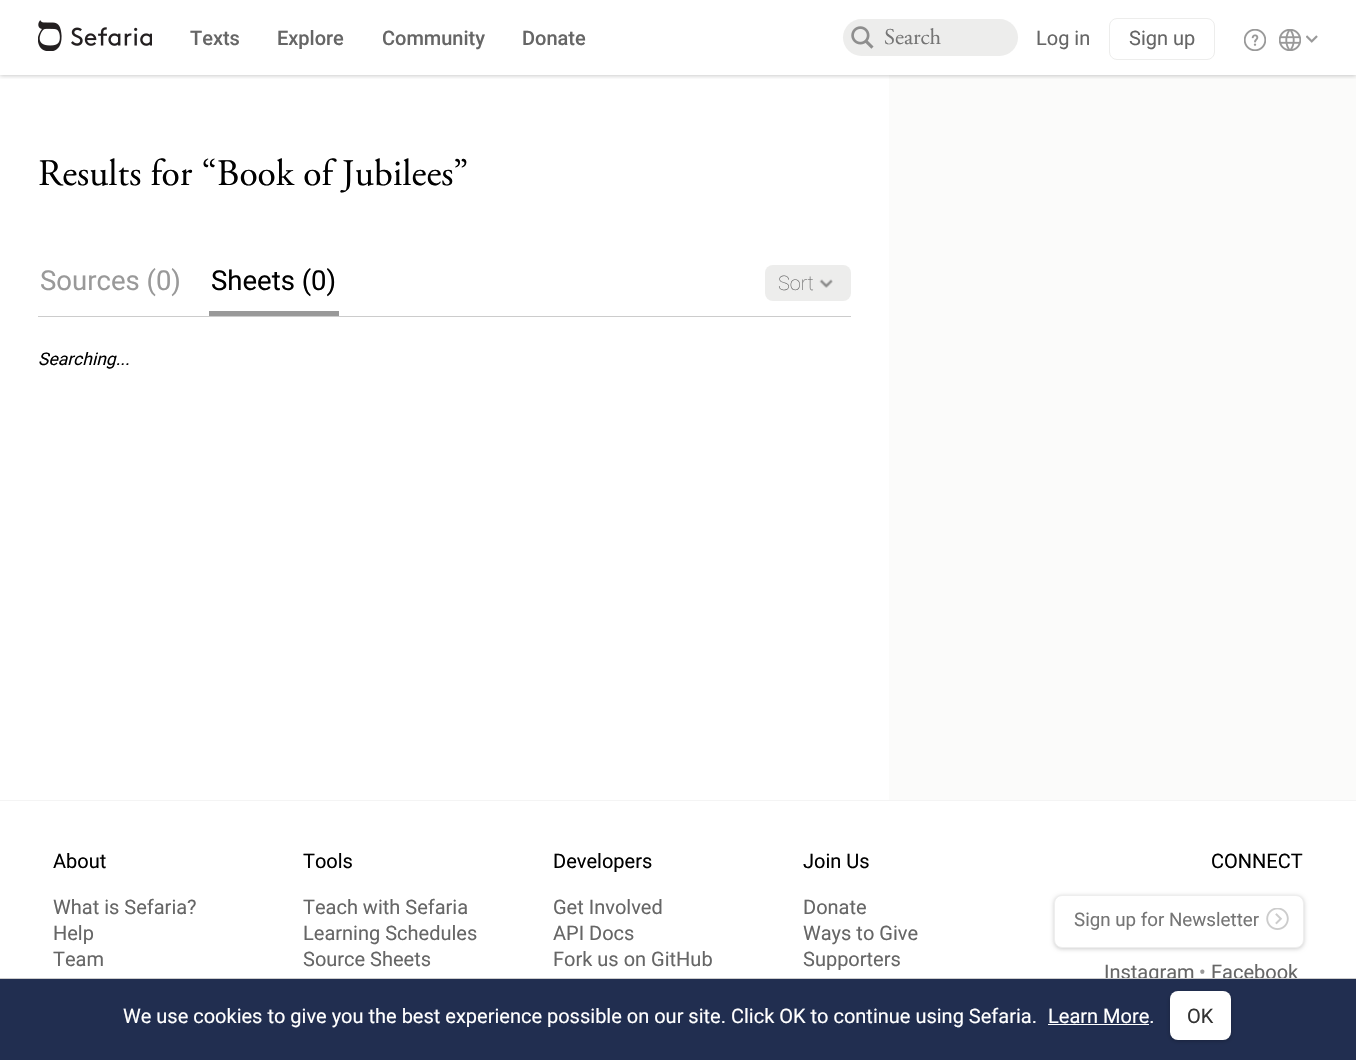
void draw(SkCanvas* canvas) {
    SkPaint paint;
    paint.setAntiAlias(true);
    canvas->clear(0xFFFFFFFF);
    paint.setColor(0xFFFBFBFA);
    canvas->drawRect(SkRect::MakeXYWH(889, 75, 467, 725), paint);
    canvas->save();
    canvas->clipRect(SkRect::MakeXYWH(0, 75, 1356, 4));
    paint.setColor(0x33000000);
    paint.setMaskFilter(SkMaskFilter::MakeBlur(kNormal_SkBlurStyle, 2));
    canvas->drawRect(SkRect::MakeXYWH(0, 1, 1356, 75), paint);
    paint.setMaskFilter(nullptr);
    canvas->restore();
    canvas->drawImageRect(SkImages::DeferredFromEncodedData(SkData::MakeFromFileName("img1.png")), SkRect::MakeXYWH(38, 20, 114, 31), SkSamplingOptions());
    SkFont font1(fontMgr->matchFamilyStyle("Roboto", SkFontStyle(500, SkFontStyle::kNormal_Width, SkFontStyle::kUpright_Slant)), 20);
    font1.setSubpixel(true);
    paint.setColor(0xFF666666);
    canvas->drawString("Texts", 190, 45, font1, paint);
    canvas->drawString("Explore", 277, 45, font1, paint);
    canvas->drawString("Community", 382, 45, font1, paint);
    canvas->drawString("Donate", 522, 45, font1, paint);
    paint.setColor(0xFFEDEDEC);
    canvas->drawRoundRect(SkRect::MakeXYWH(843, 19, 175, 37), 18.5f, 18.5f, paint);
    canvas->drawImageRect(SkImages::DeferredFromEncodedData(SkData::MakeFromFileName("img2.png")), SkRect::MakeXYWH(851, 26, 23, 23), SkSamplingOptions());
    SkFont font2(fontMgr->matchFamilyStyle("Adobe Garamond", SkFontStyle::Normal()), 22.5f);
    font2.setSubpixel(true);
    paint.setColor(0xFF757575);
    canvas->drawString("Search", 884, 44, font2, paint);
    SkFont font3(fontMgr->matchFamilyStyle("Roboto", SkFontStyle::Normal()), 20);
    font3.setSubpixel(true);
    paint.setColor(0xFF666666);
    canvas->drawString("Log in", 1036, 45, font3, paint);
    paint.setStyle(SkPaint::kStroke_Style);
    paint.setStrokeWidth(1);
    paint.setColor(0xFFEDEDEC);
    canvas->drawRoundRect(SkRect::MakeXYWH(1109.5f, 18.5f, 105, 41), 7.5f, 7.5f, paint);
    paint.setStyle(SkPaint::kFill_Style);
    paint.setColor(0xFF666666);
    canvas->drawString("Sign up", 1129, 45, font3, paint);
    canvas->drawImageRect(SkImages::DeferredFromEncodedData(SkData::MakeFromFileName("img3.png")), SkRect::MakeXYWH(1244, 29, 22, 22), SkSamplingOptions());
    canvas->drawImageRect(SkImages::DeferredFromEncodedData(SkData::MakeFromFileName("img4.png")), SkRect::MakeXYWH(1279, 29, 22, 22), SkSamplingOptions());
    canvas->drawImageRect(SkImages::DeferredFromEncodedData(SkData::MakeFromFileName("img5.png")), SkRect::MakeXYWH(1306, 35, 12, 8), SkSamplingOptions());
    SkFont font4(fontMgr->matchFamilyStyle("Adobe Garamond", SkFontStyle::Normal()), 37.5f);
    font4.setSubpixel(true);
    paint.setColor(0xFF000000);
    canvas->drawString("Results for “Book of Jubilees”", 38, 185, font4, paint);
    paint.setColor(0xFFCCCCCC);
    canvas->drawRect(SkRect::MakeXYWH(38, 316, 813, 1), paint);
    SkFont font5(fontMgr->matchFamilyStyle("Roboto", SkFontStyle::Normal()), 27.5f);
    font5.setSubpixel(true);
    paint.setColor(0xFF999999);
    canvas->drawString("Sources (0)", 40, 290, font5, paint);
    canvas->drawRect(SkRect::MakeXYWH(209, 311, 130, 5), paint);
    paint.setColor(0xFF000000);
    canvas->drawString("Sheets (0)", 211, 290, font5, paint);
    paint.setColor(0xFFEDEDEC);
    canvas->drawRoundRect(SkRect::MakeXYWH(765, 265, 86, 36), 8, 8, paint);
    SkFont font6(fontMgr->matchFamilyStyle("Roboto", SkFontStyle(100, SkFontStyle::kNormal_Width, SkFontStyle::kUpright_Slant)), 20);
    font6.setSubpixel(true);
    paint.setColor(0xFF666666);
    canvas->drawString("Sort", 778, 290, font6, paint);
    canvas->drawImageRect(SkImages::DeferredFromEncodedData(SkData::MakeFromFileName("img6.png")), SkRect::MakeXYWH(819, 279, 14, 9), SkSamplingOptions());
    SkFont font7(fontMgr->matchFamilyStyle("Roboto", SkFontStyle::Italic()), 17.5f);
    font7.setSubpixel(true);
    paint.setColor(0xFF000000);
    canvas->drawString("Searching...", 38, 365, font7, paint);
    paint.setColor(0xFFF4F4F4);
    canvas->drawRect(SkRect::MakeXYWH(0, 800, 1356, 1), paint);
    paint.setColor(0xFF000000);
    canvas->drawString("About", 53, 868, font3, paint);
    paint.setColor(0xFF666666);
    canvas->drawString("What is Sefaria?", 53, 914, font3, paint);
    canvas->drawString("Help", 53, 940, font3, paint);
    canvas->drawString("Team", 53, 966, font3, paint);
    paint.setColor(0xFF000000);
    canvas->drawString("Tools", 303, 868, font3, paint);
    paint.setColor(0xFF666666);
    canvas->drawString("Teach with Sefaria", 303, 914, font3, paint);
    canvas->drawString("Learning Schedules", 303, 940, font3, paint);
    canvas->drawString("Source Sheets", 303, 966, font3, paint);
    paint.setColor(0xFF000000);
    canvas->drawString("Developers", 553, 868, font3, paint);
    paint.setColor(0xFF666666);
    canvas->drawString("Get Involved", 553, 914, font3, paint);
    canvas->drawString("API Docs", 553, 940, font3, paint);
    canvas->drawString("Fork us on GitHub", 553, 966, font3, paint);
    paint.setColor(0xFF000000);
    canvas->drawString("Join Us", 803, 868, font3, paint);
    paint.setColor(0xFF666666);
    canvas->drawString("Donate", 803, 914, font3, paint);
    canvas->drawString("Ways to Give", 803, 940, font3, paint);
    canvas->drawString("Supporters", 803, 966, font3, paint);
    paint.setColor(0xFF000000);
    canvas->drawString("CONNECT", 1211, 868, font3, paint);
    paint.setColor(0x33000000);
    paint.setMaskFilter(SkMaskFilter::MakeBlur(kNormal_SkBlurStyle, 2));
    canvas->drawRoundRect(SkRect::MakeXYWH(1054, 896, 250, 53), 8, 8, paint);
    paint.setMaskFilter(nullptr);
    paint.setColor(0xFFFFFFFF);
    canvas->drawRoundRect(SkRect::MakeXYWH(1054.5f, 895.5f, 249, 52), 7.5f, 7.5f, paint);
    paint.setStyle(SkPaint::kStroke_Style);
    paint.setColor(0xFFEEEEEE);
    canvas->drawRoundRect(SkRect::MakeXYWH(1054.5f, 895.5f, 249, 52), 7.5f, 7.5f, paint);
    SkFont font8(fontMgr->matchFamilyStyle("Roboto", SkFontStyle::Normal()), 18.75f);
    font8.setSubpixel(true);
    paint.setStyle(SkPaint::kFill_Style);
    paint.setColor(0xFF757575);
    canvas->drawString("Sign up for Newsletter", 1074, 926, font8, paint);
    canvas->drawImageRect(SkImages::DeferredFromEncodedData(SkData::MakeFromFileName("img7.png")), SkRect::MakeXYWH(1266, 908, 23, 22), SkSamplingOptions());
    paint.setColor(0xFF666666);
    canvas->drawString("Instagram", 1104, 979, font3, paint);
    paint.setColor(0xFF999999);
    canvas->drawString("•", 1199, 979, font3, paint);
    paint.setColor(0xFF666666);
    canvas->drawString("Facebook", 1211, 979, font3, paint);
    paint.setColor(0xFF212E50);
    canvas->drawRect(SkRect::MakeXYWH(0, 979, 1356, 81), paint);
    paint.setColor(0xFFCCCCCC);
    canvas->drawRect(SkRect::MakeXYWH(0, 978, 1356, 1), paint);
    paint.setColor(0xFFFFFFFF);
    canvas->drawString("We use cookies to give you the best experience possible on our site. Click OK to continue using Sefaria.", 123, 1023, font3, paint);
    canvas->drawString("Learn More.", 1048, 1023, font3, paint);
    canvas->drawRect(SkRect::MakeXYWH(1048, 1024, 101, 1), paint);
    paint.setColor(0x40000000);
    paint.setMaskFilter(SkMaskFilter::MakeBlur(kNormal_SkBlurStyle, 2));
    canvas->drawRoundRect(SkRect::MakeXYWH(1170, 993, 61, 48), 8, 8, paint);
    paint.setMaskFilter(nullptr);
    paint.setColor(0xFFFFFFFF);
    canvas->drawRoundRect(SkRect::MakeXYWH(1170, 991, 61, 49), 8, 8, paint);
    paint.setColor(0xFF333333);
    canvas->drawString("OK", 1187, 1023, font3, paint);
}
